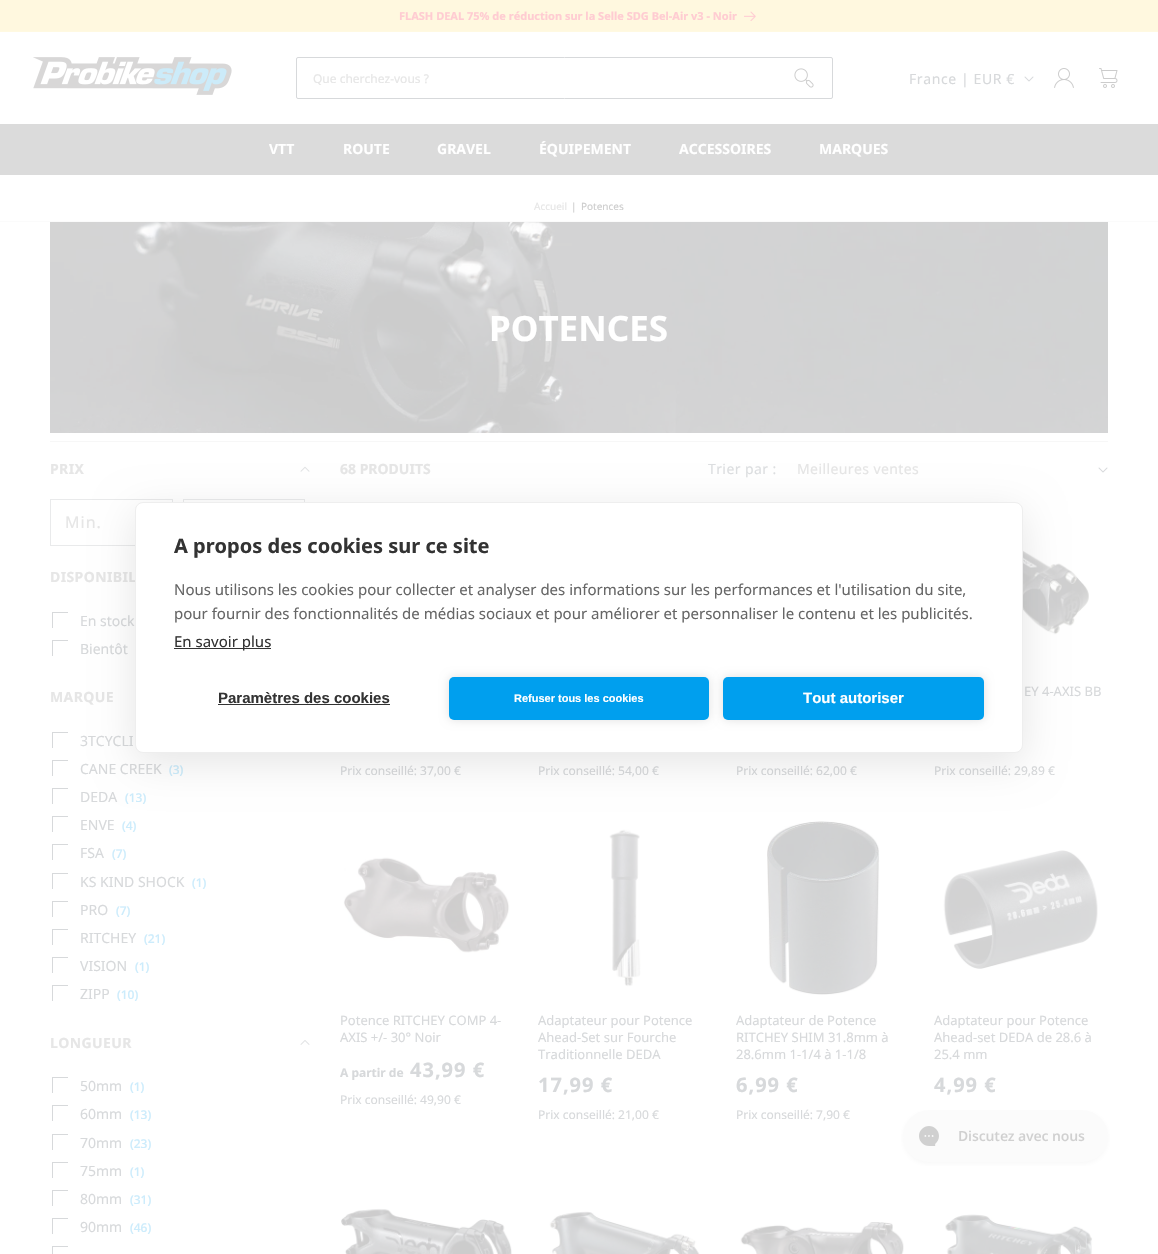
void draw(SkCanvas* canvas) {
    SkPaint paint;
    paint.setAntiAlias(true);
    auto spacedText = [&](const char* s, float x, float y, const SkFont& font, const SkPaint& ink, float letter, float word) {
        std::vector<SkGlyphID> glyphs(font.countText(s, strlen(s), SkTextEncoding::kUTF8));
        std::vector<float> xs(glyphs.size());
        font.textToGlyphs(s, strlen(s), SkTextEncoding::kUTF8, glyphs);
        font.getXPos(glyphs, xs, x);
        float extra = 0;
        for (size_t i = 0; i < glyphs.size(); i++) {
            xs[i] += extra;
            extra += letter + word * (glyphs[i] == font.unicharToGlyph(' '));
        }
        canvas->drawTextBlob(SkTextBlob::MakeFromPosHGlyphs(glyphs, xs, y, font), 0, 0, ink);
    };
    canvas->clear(0xFFFFFFFF);
    paint.setColor(0xFFFFF8DF);
    canvas->drawRect(SkRect::MakeXYWH(0, 0, 1158, 31), paint);
    paint.setColor(0xFFFFF9E1);
    canvas->drawRect(SkRect::MakeXYWH(0, 31, 1158, 1), paint);
    SkFont font1(fontMgr->matchFamilyStyle("Noto Sans", SkFontStyle::Bold()), 11);
    font1.setSubpixel(true);
    paint.setColor(0xFFFFCCD2);
    canvas->drawString("FLASH DEAL 75% de réduction sur la Selle SDG Bel-Air v3 - Noir", 399, 20, font1, paint);
    canvas->drawImageRect(SkImages::DeferredFromEncodedData(SkData::MakeFromFileName("img1.png")), SkRect::MakeXYWH(744, 11, 12, 10), SkSamplingOptions());
    canvas->drawImageRect(SkImages::DeferredFromEncodedData(SkData::MakeFromFileName("img2.png")), SkRect::MakeXYWH(33, 57, 199, 38), SkSamplingOptions());
    paint.setStyle(SkPaint::kStroke_Style);
    paint.setStrokeWidth(1);
    paint.setColor(0xFFD7D9DB);
    canvas->drawRoundRect(SkRect::MakeXYWH(296.5f, 57.5f, 536, 41), 1.5f, 1.5f, paint);
    SkFont font2(fontMgr->matchFamilyStyle("Noto Sans", SkFontStyle::Normal()), 12);
    font2.setSubpixel(true);
    paint.setStyle(SkPaint::kFill_Style);
    paint.setColor(0xFFE6E6E6);
    canvas->drawString("Que cherchez-vous ?", 313, 83, font2, paint);
    canvas->drawImageRect(SkImages::DeferredFromEncodedData(SkData::MakeFromFileName("img3.png")), SkRect::MakeXYWH(794, 68, 20, 20), SkSamplingOptions());
    SkFont font3(fontMgr->matchFamilyStyle("Noto Sans", SkFontStyle::Normal()), 14);
    font3.setSubpixel(true);
    paint.setColor(0xFFD7D9DB);
    spacedText("France | EUR €", 909, 84, font3, paint, 0.6f, 0);
    canvas->drawImageRect(SkImages::DeferredFromEncodedData(SkData::MakeFromFileName("img4.png")), SkRect::MakeXYWH(1024, 76, 10, 6), SkSamplingOptions());
    canvas->drawImageRect(SkImages::DeferredFromEncodedData(SkData::MakeFromFileName("img5.png")), SkRect::MakeXYWH(1054, 68, 20, 20), SkSamplingOptions());
    canvas->drawImageRect(SkImages::DeferredFromEncodedData(SkData::MakeFromFileName("img6.png")), SkRect::MakeXYWH(1099, 68, 19, 20), SkSamplingOptions());
    paint.setColor(0xFFDBDBDB);
    canvas->drawRect(SkRect::MakeXYWH(0, 124, 1158, 51), paint);
    SkFont font4(fontMgr->matchFamilyStyle("Noto Sans", SkFontStyle::Bold()), 14);
    font4.setSubpixel(true);
    paint.setColor(0xFFFFFFFF);
    canvas->drawString("VTT", 269, 154, font4, paint);
    canvas->drawString("ROUTE", 343, 154, font4, paint);
    canvas->drawString("GRAVEL", 437, 154, font4, paint);
    canvas->drawString("ÉQUIPEMENT", 539, 154, font4, paint);
    canvas->drawString("ACCESSOIRES", 679, 154, font4, paint);
    canvas->drawString("MARQUES", 819, 154, font4, paint);
    paint.setColor(0xFFFBFBFB);
    canvas->drawRect(SkRect::MakeXYWH(0, 221, 1158, 1), paint);
    SkFont font5(fontMgr->matchFamilyStyle("Noto Sans", SkFontStyle::Normal()), 10);
    font5.setSubpixel(true);
    paint.setColor(0xFFE6E6E6);
    canvas->drawString("Accueil", 534, 210, font5, paint);
    paint.setColor(0xFFCCCCCC);
    canvas->drawString("|", 571, 210, font5, paint);
    canvas->drawString("Potences", 581, 210, font5, paint);
    canvas->drawImageRect(SkImages::DeferredFromEncodedData(SkData::MakeFromFileName("img7.png")), SkRect::MakeXYWH(50, 222, 1058, 211), SkSamplingOptions());
    SkFont font6(fontMgr->matchFamilyStyle("Noto Sans", SkFontStyle::Bold()), 35);
    font6.setSubpixel(true);
    paint.setColor(0xFFFFFFFF);
    canvas->drawString("POTENCES", 489, 341, font6, paint);
    paint.setColor(0xFFF7F7F7);
    canvas->drawRect(SkRect::MakeXYWH(50, 441, 1058, 1), paint);
    paint.setColor(0xFFE6E6E6);
    spacedText("PRIX", 50, 474, font4, paint, 0.4f, 0);
    canvas->drawImageRect(SkImages::DeferredFromEncodedData(SkData::MakeFromFileName("img8.png")), SkRect::MakeXYWH(300, 466, 10, 6), SkSamplingOptions());
    paint.setStyle(SkPaint::kStroke_Style);
    paint.setColor(0xFFE9EAEB);
    canvas->drawRect(SkRect::MakeXYWH(50.5f, 499.5f, 122, 46), paint);
    SkFont font7(fontMgr->matchFamilyStyle("Noto Sans", SkFontStyle::Normal()), 16);
    font7.setSubpixel(true);
    paint.setStyle(SkPaint::kFill_Style);
    paint.setColor(0xFFE6E6E6);
    spacedText("Min.", 65, 528, font7, paint, 1, 0);
    paint.setStyle(SkPaint::kStroke_Style);
    paint.setColor(0xFFE9EAEB);
    canvas->drawRect(SkRect::MakeXYWH(183.5f, 499.5f, 121, 46), paint);
    paint.setStyle(SkPaint::kFill_Style);
    paint.setColor(0xFFE6E6E6);
    spacedText("DISPONIBIL", 50, 582, font4, paint, 0.4f, 0);
    canvas->save();
    canvas->clipRect(SkRect::MakeXYWH(52, 612, 16, 16));
    paint.setStyle(SkPaint::kStroke_Style);
    paint.setColor(0xFFD7D9DB);
    canvas->drawRect(SkRect::MakeXYWH(52.5f, 612.5f, 16, 16), paint);
    canvas->restore();
    paint.setStyle(SkPaint::kFill_Style);
    canvas->drawString("En stock", 80, 626, font3, paint);
    canvas->save();
    canvas->clipRect(SkRect::MakeXYWH(52, 640, 16, 16));
    paint.setStyle(SkPaint::kStroke_Style);
    canvas->drawRect(SkRect::MakeXYWH(52.5f, 640.5f, 16, 16), paint);
    canvas->restore();
    paint.setStyle(SkPaint::kFill_Style);
    canvas->drawString("Bientôt", 80, 654, font3, paint);
    paint.setColor(0xFFE6E6E6);
    spacedText("MARQUE", 50, 702, font4, paint, 0.4f, 0);
    canvas->save();
    canvas->clipRect(SkRect::MakeXYWH(52, 732, 16, 16));
    paint.setStyle(SkPaint::kStroke_Style);
    paint.setColor(0xFFD7D9DB);
    canvas->drawRect(SkRect::MakeXYWH(52.5f, 732.5f, 16, 16), paint);
    canvas->restore();
    paint.setStyle(SkPaint::kFill_Style);
    canvas->drawString("3TCYCLI", 80, 746, font3, paint);
    canvas->save();
    canvas->clipRect(SkRect::MakeXYWH(52, 760, 16, 16));
    paint.setStyle(SkPaint::kStroke_Style);
    canvas->drawRect(SkRect::MakeXYWH(52.5f, 760.5f, 16, 16), paint);
    canvas->restore();
    paint.setStyle(SkPaint::kFill_Style);
    canvas->drawString("CANE CREEK", 80, 774, font3, paint);
    SkFont font8(fontMgr->matchFamilyStyle("Noto Sans", SkFontStyle(500, SkFontStyle::kNormal_Width, SkFontStyle::kUpright_Slant)), 12);
    font8.setSubpixel(true);
    paint.setColor(0xFFCCECFC);
    canvas->drawString("(3)", 169, 774, font8, paint);
    canvas->save();
    canvas->clipRect(SkRect::MakeXYWH(52, 788, 16, 16));
    paint.setStyle(SkPaint::kStroke_Style);
    paint.setColor(0xFFD7D9DB);
    canvas->drawRect(SkRect::MakeXYWH(52.5f, 788.5f, 16, 16), paint);
    canvas->restore();
    paint.setStyle(SkPaint::kFill_Style);
    canvas->drawString("DEDA", 80, 802, font3, paint);
    paint.setColor(0xFFCCECFC);
    canvas->drawString("(13)", 125, 802, font8, paint);
    canvas->save();
    canvas->clipRect(SkRect::MakeXYWH(52, 816, 16, 16));
    paint.setStyle(SkPaint::kStroke_Style);
    paint.setColor(0xFFD7D9DB);
    canvas->drawRect(SkRect::MakeXYWH(52.5f, 816.5f, 16, 16), paint);
    canvas->restore();
    paint.setStyle(SkPaint::kFill_Style);
    canvas->drawString("ENVE", 80, 830, font3, paint);
    paint.setColor(0xFFCCECFC);
    canvas->drawString("(4)", 122, 830, font8, paint);
    canvas->save();
    canvas->clipRect(SkRect::MakeXYWH(52, 844, 16, 16));
    paint.setStyle(SkPaint::kStroke_Style);
    paint.setColor(0xFFD7D9DB);
    canvas->drawRect(SkRect::MakeXYWH(52.5f, 844.5f, 16, 16), paint);
    canvas->restore();
    paint.setStyle(SkPaint::kFill_Style);
    canvas->drawString("FSA", 80, 858, font3, paint);
    paint.setColor(0xFFCCECFC);
    canvas->drawString("(7)", 112, 858, font8, paint);
    canvas->save();
    canvas->clipRect(SkRect::MakeXYWH(52, 873, 16, 16));
    paint.setStyle(SkPaint::kStroke_Style);
    paint.setColor(0xFFD7D9DB);
    canvas->drawRect(SkRect::MakeXYWH(52.5f, 873.5f, 16, 16), paint);
    canvas->restore();
    paint.setStyle(SkPaint::kFill_Style);
    canvas->drawString("KS KIND SHOCK", 80, 887, font3, paint);
    paint.setColor(0xFFCCECFC);
    canvas->drawString("(1)", 192, 887, font8, paint);
    canvas->save();
    canvas->clipRect(SkRect::MakeXYWH(52, 901, 16, 16));
    paint.setStyle(SkPaint::kStroke_Style);
    paint.setColor(0xFFD7D9DB);
    canvas->drawRect(SkRect::MakeXYWH(52.5f, 901.5f, 16, 16), paint);
    canvas->restore();
    paint.setStyle(SkPaint::kFill_Style);
    canvas->drawString("PRO", 80, 915, font3, paint);
    paint.setColor(0xFFCCECFC);
    canvas->drawString("(7)", 116, 915, font8, paint);
    canvas->save();
    canvas->clipRect(SkRect::MakeXYWH(52, 929, 16, 16));
    paint.setStyle(SkPaint::kStroke_Style);
    paint.setColor(0xFFD7D9DB);
    canvas->drawRect(SkRect::MakeXYWH(52.5f, 929.5f, 16, 16), paint);
    canvas->restore();
    paint.setStyle(SkPaint::kFill_Style);
    canvas->drawString("RITCHEY", 80, 943, font3, paint);
    paint.setColor(0xFFCCECFC);
    canvas->drawString("(21)", 144, 943, font8, paint);
    canvas->save();
    canvas->clipRect(SkRect::MakeXYWH(52, 957, 16, 16));
    paint.setStyle(SkPaint::kStroke_Style);
    paint.setColor(0xFFD7D9DB);
    canvas->drawRect(SkRect::MakeXYWH(52.5f, 957.5f, 16, 16), paint);
    canvas->restore();
    paint.setStyle(SkPaint::kFill_Style);
    canvas->drawString("VISION", 80, 971, font3, paint);
    paint.setColor(0xFFCCECFC);
    canvas->drawString("(1)", 135, 971, font8, paint);
    canvas->save();
    canvas->clipRect(SkRect::MakeXYWH(52, 985, 16, 16));
    paint.setStyle(SkPaint::kStroke_Style);
    paint.setColor(0xFFD7D9DB);
    canvas->drawRect(SkRect::MakeXYWH(52.5f, 985.5f, 16, 16), paint);
    canvas->restore();
    paint.setStyle(SkPaint::kFill_Style);
    canvas->drawString("ZIPP", 80, 999, font3, paint);
    paint.setColor(0xFFCCECFC);
    canvas->drawString("(10)", 117, 999, font8, paint);
    paint.setColor(0xFFE6E6E6);
    spacedText("LONGUEUR", 50, 1048, font4, paint, 0.4f, 0);
    canvas->drawImageRect(SkImages::DeferredFromEncodedData(SkData::MakeFromFileName("img9.png")), SkRect::MakeXYWH(300, 1040, 10, 5), SkSamplingOptions());
    canvas->save();
    canvas->clipRect(SkRect::MakeXYWH(52, 1077, 16, 16));
    paint.setStyle(SkPaint::kStroke_Style);
    paint.setColor(0xFFD7D9DB);
    canvas->drawRect(SkRect::MakeXYWH(52.5f, 1077.5f, 16, 16), paint);
    canvas->restore();
    paint.setStyle(SkPaint::kFill_Style);
    canvas->drawString("50mm", 80, 1091, font3, paint);
    paint.setColor(0xFFCCECFC);
    canvas->drawString("(1)", 130, 1091, font8, paint);
    canvas->save();
    canvas->clipRect(SkRect::MakeXYWH(52, 1105, 16, 16));
    paint.setStyle(SkPaint::kStroke_Style);
    paint.setColor(0xFFD7D9DB);
    canvas->drawRect(SkRect::MakeXYWH(52.5f, 1105.5f, 16, 16), paint);
    canvas->restore();
    paint.setStyle(SkPaint::kFill_Style);
    canvas->drawString("60mm", 80, 1119, font3, paint);
    paint.setColor(0xFFCCECFC);
    canvas->drawString("(13)", 130, 1119, font8, paint);
    canvas->save();
    canvas->clipRect(SkRect::MakeXYWH(52, 1134, 16, 16));
    paint.setStyle(SkPaint::kStroke_Style);
    paint.setColor(0xFFD7D9DB);
    canvas->drawRect(SkRect::MakeXYWH(52.5f, 1134.5f, 16, 16), paint);
    canvas->restore();
    paint.setStyle(SkPaint::kFill_Style);
    canvas->drawString("70mm", 80, 1148, font3, paint);
    paint.setColor(0xFFCCECFC);
    canvas->drawString("(23)", 130, 1148, font8, paint);
    canvas->save();
    canvas->clipRect(SkRect::MakeXYWH(52, 1162, 16, 16));
    paint.setStyle(SkPaint::kStroke_Style);
    paint.setColor(0xFFD7D9DB);
    canvas->drawRect(SkRect::MakeXYWH(52.5f, 1162.5f, 16, 16), paint);
    canvas->restore();
    paint.setStyle(SkPaint::kFill_Style);
    canvas->drawString("75mm", 80, 1176, font3, paint);
    paint.setColor(0xFFCCECFC);
    canvas->drawString("(1)", 130, 1176, font8, paint);
    canvas->save();
    canvas->clipRect(SkRect::MakeXYWH(52, 1190, 16, 16));
    paint.setStyle(SkPaint::kStroke_Style);
    paint.setColor(0xFFD7D9DB);
    canvas->drawRect(SkRect::MakeXYWH(52.5f, 1190.5f, 16, 16), paint);
    canvas->restore();
    paint.setStyle(SkPaint::kFill_Style);
    canvas->drawString("80mm", 80, 1204, font3, paint);
    paint.setColor(0xFFCCECFC);
    canvas->drawString("(31)", 130, 1204, font8, paint);
    canvas->save();
    canvas->clipRect(SkRect::MakeXYWH(52, 1218, 16, 16));
    paint.setStyle(SkPaint::kStroke_Style);
    paint.setColor(0xFFD7D9DB);
    canvas->drawRect(SkRect::MakeXYWH(52.5f, 1218.5f, 16, 16), paint);
    canvas->restore();
    paint.setStyle(SkPaint::kFill_Style);
    canvas->drawString("90mm", 80, 1232, font3, paint);
    paint.setColor(0xFFCCECFC);
    canvas->drawString("(46)", 130, 1232, font8, paint);
    canvas->save();
    canvas->clipRect(SkRect::MakeXYWH(52, 1246, 16, 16));
    paint.setStyle(SkPaint::kStroke_Style);
    paint.setColor(0xFFD7D9DB);
    canvas->drawRect(SkRect::MakeXYWH(52.5f, 1246.5f, 16, 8), paint);
    canvas->restore();
    paint.setStyle(SkPaint::kFill_Style);
    paint.setColor(0xFFE6E6E6);
    canvas->drawString("68 PRODUITS", 340, 474, font4, paint);
    paint.setColor(0xFFDDDFE1);
    spacedText("Trier par :", 708, 474, font3, paint, 0.4f, 0);
    paint.setColor(0xFFE6E6E6);
    spacedText("Meilleures ventes", 797, 474, font3, paint, 0.4f, 0);
    canvas->drawImageRect(SkImages::DeferredFromEncodedData(SkData::MakeFromFileName("img4.png")), SkRect::MakeXYWH(1098, 467, 10, 6), SkSamplingOptions());
    paint.setColor(0xFFD7D9DB);
    canvas->drawString("Prix conseillé: 37,00 €", 340, 775, font2, paint);
    canvas->drawString("Prix conseillé: 54,00 €", 538, 775, font2, paint);
    canvas->drawString("Prix conseillé: 62,00 €", 736, 775, font2, paint);
    canvas->drawImageRect(SkImages::DeferredFromEncodedData(SkData::MakeFromFileName("img10.png")), SkRect::MakeXYWH(1023, 523, 66, 112), SkSamplingOptions());
    SkFont font9(fontMgr->matchFamilyStyle("Noto Sans", SkFontStyle::Normal()), 13);
    font9.setSubpixel(true);
    canvas->drawString("EY 4-AXIS BB", 1024, 696, font9, paint);
    canvas->drawString("Prix conseillé: 29,89 €", 934, 775, font2, paint);
    canvas->drawImageRect(SkImages::DeferredFromEncodedData(SkData::MakeFromFileName("img11.png")), SkRect::MakeXYWH(343, 857, 167, 96), SkSamplingOptions());
    canvas->drawString("Potence RITCHEY COMP 4-", 340, 1025, font9, paint);
    canvas->drawString("AXIS +/- 30° Noir", 340, 1042, font9, paint);
    SkFont font10(fontMgr->matchFamilyStyle("Noto Sans", SkFontStyle::Bold()), 12);
    font10.setSubpixel(true);
    canvas->drawString("A partir de", 340, 1077, font10, paint);
    SkFont font11(fontMgr->matchFamilyStyle("Noto Sans", SkFontStyle::Bold()), 20);
    font11.setSubpixel(true);
    spacedText("43,99 €", 410, 1077, font11, paint, 1, 0);
    canvas->drawString("Prix conseillé: 49,90 €", 340, 1104, font2, paint);
    canvas->drawImageRect(SkImages::DeferredFromEncodedData(SkData::MakeFromFileName("img12.png")), SkRect::MakeXYWH(609, 829, 32, 158), SkSamplingOptions());
    canvas->drawString("Adaptateur pour Potence", 538, 1025, font9, paint);
    canvas->drawString("Ahead-Set sur Fourche", 538, 1042, font9, paint);
    canvas->drawString("Traditionnelle DEDA", 538, 1059, font9, paint);
    spacedText("17,99 €", 538, 1092, font11, paint, 1, 0);
    canvas->drawString("Prix conseillé: 21,00 €", 538, 1119, font2, paint);
    canvas->drawImageRect(SkImages::DeferredFromEncodedData(SkData::MakeFromFileName("img13.png")), SkRect::MakeXYWH(767, 821, 113, 174), SkSamplingOptions());
    canvas->drawString("Adaptateur de Potence", 736, 1025, font9, paint);
    canvas->drawString("RITCHEY SHIM 31.8mm à", 736, 1042, font9, paint);
    canvas->drawString("28.6mm 1-1/4 à 1-1/8", 736, 1059, font9, paint);
    spacedText("6,99 €", 736, 1092, font11, paint, 1, 0);
    canvas->drawString("Prix conseillé: 7,90 €", 736, 1119, font2, paint);
    canvas->drawImageRect(SkImages::DeferredFromEncodedData(SkData::MakeFromFileName("img14.png")), SkRect::MakeXYWH(943, 850, 155, 119), SkSamplingOptions());
    canvas->drawString("Adaptateur pour Potence", 934, 1025, font9, paint);
    canvas->drawString("Ahead-set DEDA de 28.6 à", 934, 1042, font9, paint);
    canvas->drawString("25.4 mm", 934, 1059, font9, paint);
    spacedText("4,99 €", 934, 1092, font11, paint, 1, 0);
    canvas->drawImageRect(SkImages::DeferredFromEncodedData(SkData::MakeFromFileName("img15.png")), SkRect::MakeXYWH(341, 1208, 171, 46), SkSamplingOptions());
    canvas->drawImageRect(SkImages::DeferredFromEncodedData(SkData::MakeFromFileName("img16.png")), SkRect::MakeXYWH(549, 1211, 151, 43), SkSamplingOptions());
    canvas->drawImageRect(SkImages::DeferredFromEncodedData(SkData::MakeFromFileName("img17.png")), SkRect::MakeXYWH(740, 1222, 164, 32), SkSamplingOptions());
    canvas->drawImageRect(SkImages::DeferredFromEncodedData(SkData::MakeFromFileName("img18.png")), SkRect::MakeXYWH(945, 1214, 148, 40), SkSamplingOptions());
    paint.setColor(0x1A000000);
    paint.setMaskFilter(SkMaskFilter::MakeBlur(kNormal_SkBlurStyle, 20));
    canvas->drawRoundRect(SkRect::MakeXYWH(135, 512, 888, 251), 8, 8, paint);
    paint.setMaskFilter(nullptr);
    paint.setColor(0xFFFFFFFF);
    canvas->drawRoundRect(SkRect::MakeXYWH(135.5f, 502.5f, 887, 250), 7.5f, 7.5f, paint);
    paint.setStyle(SkPaint::kStroke_Style);
    paint.setColor(0xFFEEEEEE);
    canvas->drawRoundRect(SkRect::MakeXYWH(135.5f, 502.5f, 887, 250), 7.5f, 7.5f, paint);
    SkFont font12(fontMgr->matchFamilyStyle("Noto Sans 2", SkFontStyle::Bold()), 20);
    font12.setSubpixel(true);
    paint.setStyle(SkPaint::kFill_Style);
    paint.setColor(0xFF333333);
    canvas->drawString("A propos des cookies sur ce site", 174, 553, font12, paint);
    SkFont font13(fontMgr->matchFamilyStyle("Noto Sans 2", SkFontStyle::Normal()), 15);
    font13.setSubpixel(true);
    paint.setColor(0xFF666666);
    canvas->drawString("Nous utilisons les cookies pour collecter et analyser des informations sur les performances et l'utilisation du site,", 174, 595, font13, paint);
    canvas->drawString("pour fournir des fonctionnalités de médias sociaux et pour améliorer et personnaliser le contenu et les publicités.", 174, 619, font13, paint);
    paint.setColor(0xFF333333);
    canvas->drawRect(SkRect::MakeXYWH(174, 648, 97, 1), paint);
    canvas->drawString("En savoir plus", 174, 647, font13, paint);
    SkFont font14(fontMgr->matchFamilyStyle("Liberation Sans", SkFontStyle::Bold()), 15);
    font14.setSubpixel(true);
    canvas->drawString("Paramètres des cookies", 218, 703, font14, paint);
    canvas->drawRect(SkRect::MakeXYWH(218, 704, 172, 1), paint);
    paint.setColor(0x1F000000);
    paint.setMaskFilter(SkMaskFilter::MakeBlur(kNormal_SkBlurStyle, 5));
    canvas->drawRoundRect(SkRect::MakeXYWH(449, 677, 260, 43), 5, 5, paint);
    paint.setMaskFilter(nullptr);
    paint.setColor(0xFF009FEE);
    canvas->drawRoundRect(SkRect::MakeXYWH(449, 677, 260, 43), 5, 5, paint);
    SkFont font15(fontMgr->matchFamilyStyle("Liberation Sans", SkFontStyle::Bold()), 11);
    font15.setSubpixel(true);
    paint.setColor(0xFFFFFFFF);
    canvas->drawString("Refuser tous les cookies", 514, 702, font15, paint);
    paint.setColor(0x1F000000);
    paint.setMaskFilter(SkMaskFilter::MakeBlur(kNormal_SkBlurStyle, 5));
    canvas->drawRoundRect(SkRect::MakeXYWH(723, 677, 261, 43), 5, 5, paint);
    paint.setMaskFilter(nullptr);
    paint.setColor(0xFF009FEE);
    canvas->drawRoundRect(SkRect::MakeXYWH(723, 677, 261, 43), 5, 5, paint);
    paint.setColor(0xFFFFFFFF);
    canvas->drawString("Tout autoriser", 803, 703, font14, paint);
    canvas->drawImageRect(SkImages::DeferredFromEncodedData(SkData::MakeFromFileName("img19.png")), SkRect::MakeXYWH(901, 1110, 209, 56), SkSamplingOptions());
}
